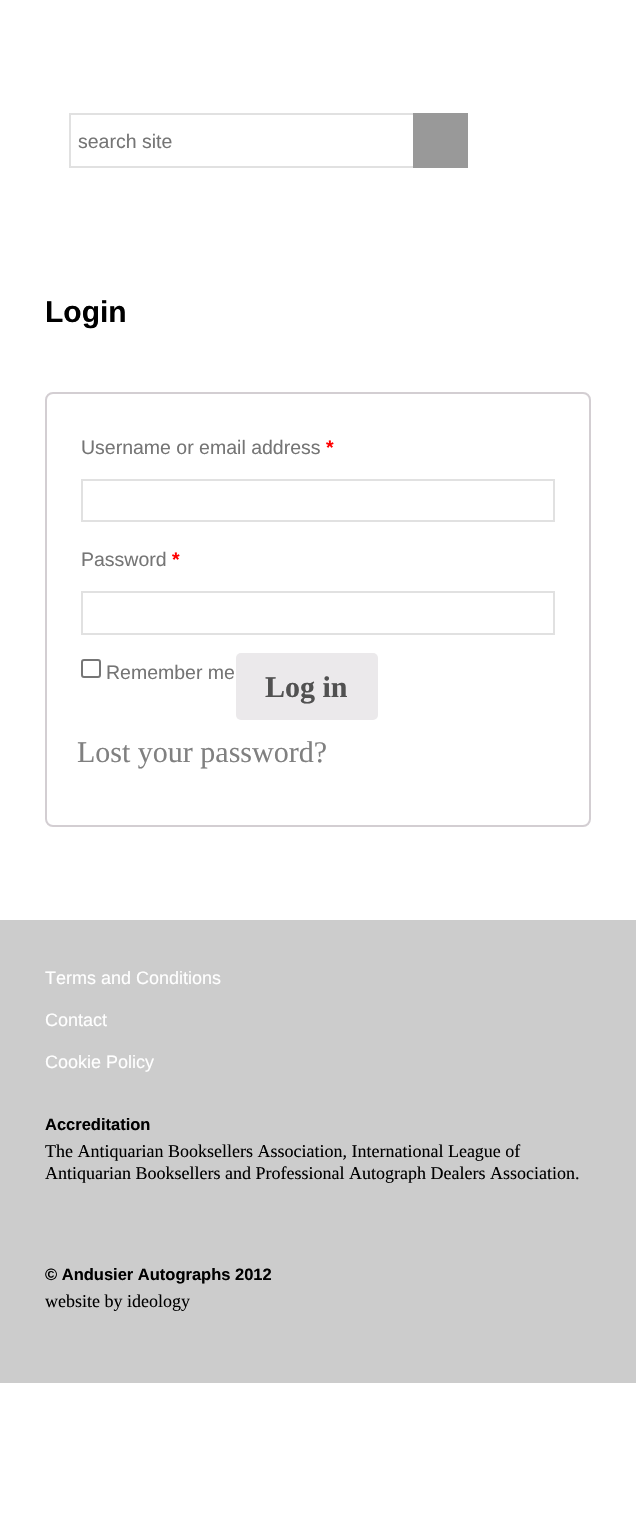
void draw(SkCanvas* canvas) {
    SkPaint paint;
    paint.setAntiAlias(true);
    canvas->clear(0xFFFFFFFF);
    paint.setStyle(SkPaint::kStroke_Style);
    paint.setStrokeWidth(2);
    paint.setColor(0xFFE1E1E1);
    canvas->drawRect(SkRect::MakeXYWH(70, 114, 397, 53), paint);
    SkFont font1(fontMgr->matchFamilyStyle("Liberation Sans", SkFontStyle::Normal()), 19.5f);
    font1.setSubpixel(true);
    paint.setStyle(SkPaint::kFill_Style);
    paint.setColor(0xFF757575);
    canvas->drawString("search site", 78, 148, font1, paint);
    paint.setColor(0xFF999999);
    canvas->drawRect(SkRect::MakeXYWH(413, 113, 55, 55), paint);
    SkFont font2(fontMgr->matchFamilyStyle("Liberation Sans", SkFontStyle::Bold()), 30);
    font2.setSubpixel(true);
    paint.setColor(0xFF000000);
    canvas->drawString("Login", 45, 322, font2, paint);
    paint.setStyle(SkPaint::kStroke_Style);
    paint.setColor(0xFFD3CED2);
    canvas->drawRoundRect(SkRect::MakeXYWH(46, 393, 544, 433), 7, 7, paint);
    paint.setStyle(SkPaint::kFill_Style);
    paint.setColor(0xFF757575);
    canvas->drawString("Username or email address", 81, 454, font1, paint);
    SkFont font3(fontMgr->matchFamilyStyle("Liberation Sans", SkFontStyle::Bold()), 19.5f);
    font3.setSubpixel(true);
    paint.setColor(0xFFFF0000);
    canvas->drawString("*", 326, 454, font3, paint);
    paint.setStyle(SkPaint::kStroke_Style);
    paint.setColor(0xFFE1E1E1);
    canvas->drawRect(SkRect::MakeXYWH(82, 480, 472, 41), paint);
    paint.setStyle(SkPaint::kFill_Style);
    paint.setColor(0xFF757575);
    canvas->drawString("Password", 81, 566, font1, paint);
    paint.setColor(0xFFFF0000);
    canvas->drawString("*", 172, 566, font3, paint);
    paint.setStyle(SkPaint::kStroke_Style);
    paint.setColor(0xFFE1E1E1);
    canvas->drawRect(SkRect::MakeXYWH(82, 592, 472, 42), paint);
    paint.setColor(0xFF767676);
    canvas->drawRoundRect(SkRect::MakeXYWH(82, 660, 18, 17), 2, 2, paint);
    paint.setStyle(SkPaint::kFill_Style);
    paint.setColor(0xFF757575);
    canvas->drawString("Remember me", 106, 679, font1, paint);
    paint.setColor(0xFFEBE9EB);
    canvas->drawRoundRect(SkRect::MakeXYWH(236, 653, 142, 67), 5, 5, paint);
    SkFont font4(fontMgr->matchFamilyStyle("Liberation Serif", SkFontStyle::Bold()), 30);
    font4.setSubpixel(true);
    paint.setColor(0xFF515151);
    canvas->drawString("Log in", 265, 697, font4, paint);
    SkFont font5(fontMgr->matchFamilyStyle("Liberation Serif", SkFontStyle::Normal()), 30);
    font5.setSubpixel(true);
    paint.setColor(0xFF808080);
    canvas->drawString("Lost your password?", 77, 762, font5, paint);
    paint.setColor(0xFFCCCCCC);
    canvas->drawRect(SkRect::MakeXYWH(0, 920, 636, 463), paint);
    SkFont font6(fontMgr->matchFamilyStyle("Liberation Sans", SkFontStyle::Normal()), 18);
    font6.setSubpixel(true);
    paint.setColor(0xFFFFFFFF);
    canvas->drawString("Terms and Conditions", 45, 984, font6, paint);
    canvas->drawString("Contact", 45, 1026, font6, paint);
    canvas->drawString("Cookie Policy", 45, 1068, font6, paint);
    SkFont font7(fontMgr->matchFamilyStyle("Liberation Sans", SkFontStyle::Bold()), 16.5f);
    font7.setSubpixel(true);
    paint.setColor(0xFF000000);
    canvas->drawString("Accreditation", 45, 1130, font7, paint);
    SkFont font8(fontMgr->matchFamilyStyle("Liberation Serif", SkFontStyle::Normal()), 18);
    font8.setSubpixel(true);
    canvas->drawString("The Antiquarian Booksellers Association, International League of", 45, 1157, font8, paint);
    canvas->drawString("Antiquarian Booksellers and Professional Autograph Dealers Association.", 45, 1179, font8, paint);
    canvas->drawString("© Andusier Autographs 2012", 45, 1280, font7, paint);
    canvas->drawString("website by ideology", 45, 1307, font8, paint);
}
